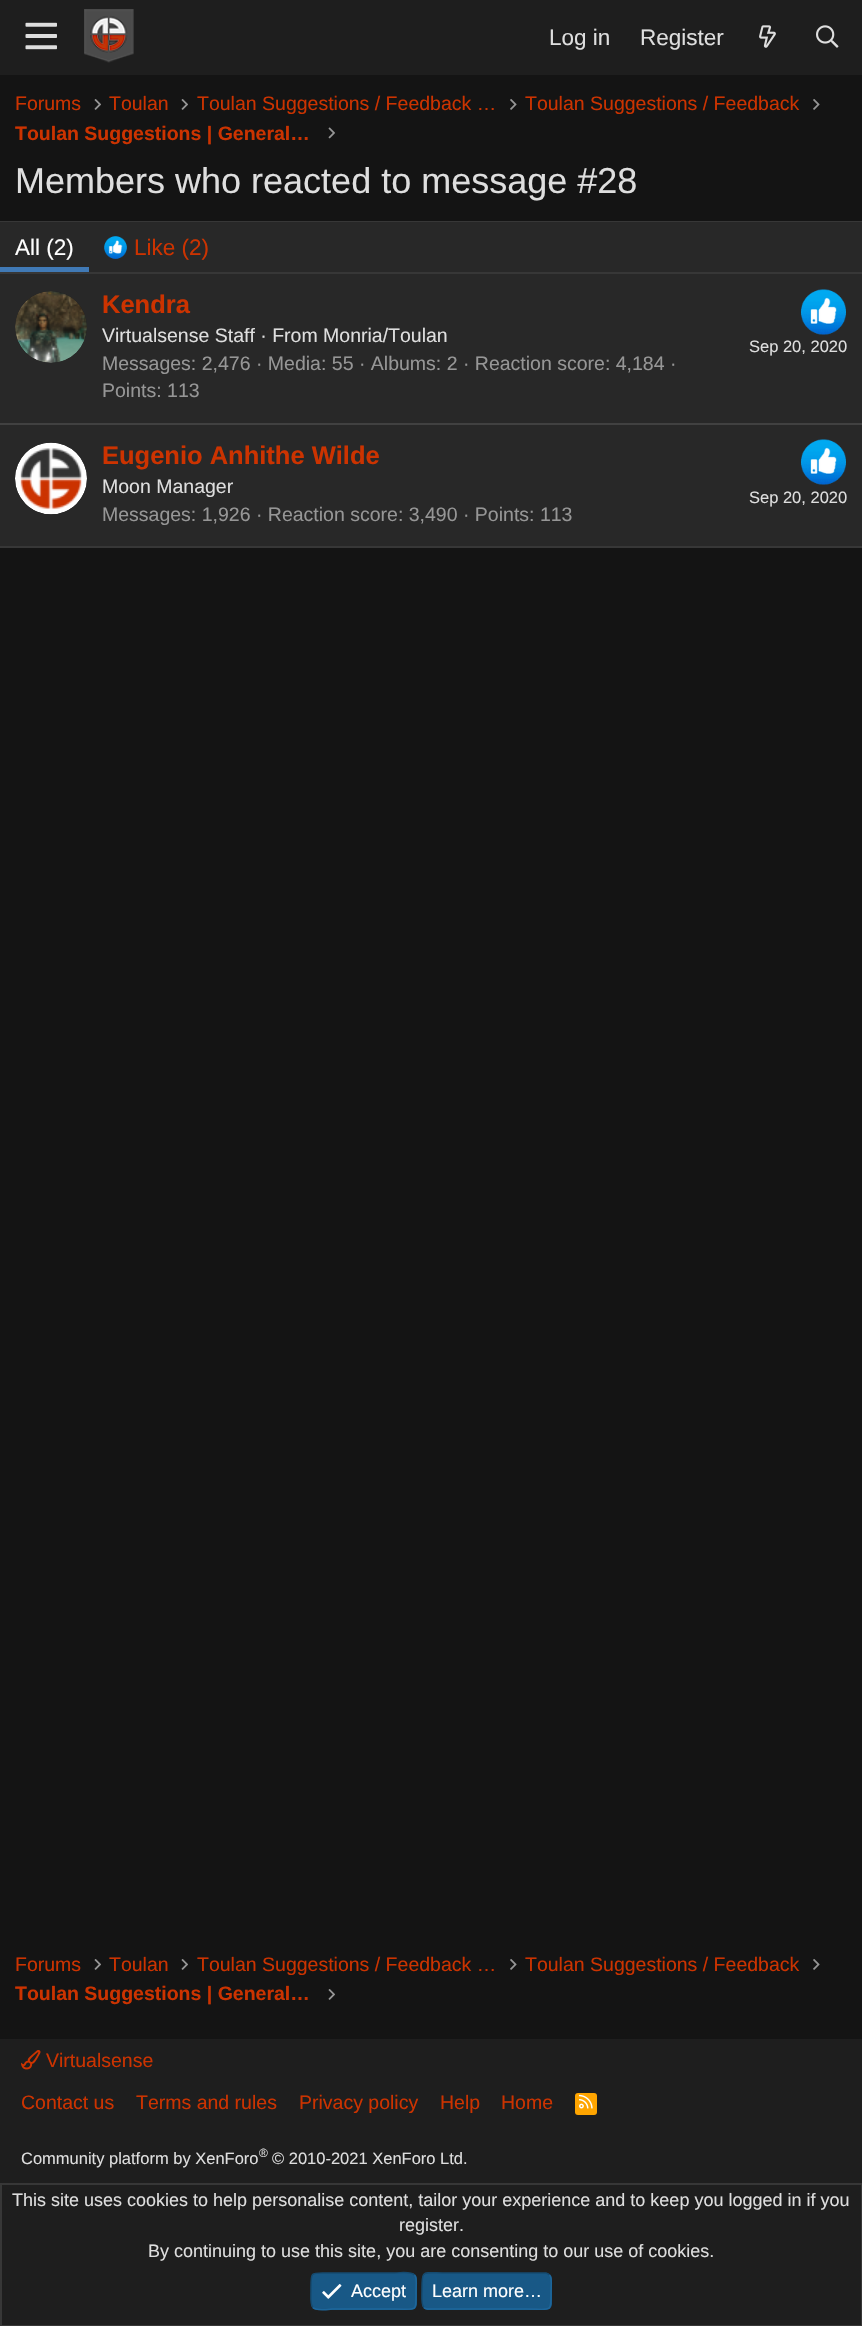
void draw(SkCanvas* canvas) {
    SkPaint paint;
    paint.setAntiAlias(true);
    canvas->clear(0xFF141414);
    paint.setColor(0xFF1E1E1E);
    canvas->drawRect(SkRect::MakeXYWH(0, 0, 862, 75), paint);
    canvas->drawImageRect(SkImages::DeferredFromEncodedData(SkData::MakeFromFileName("img1.png")), SkRect::MakeXYWH(25, 22, 32, 28), SkSamplingOptions());
    canvas->drawImageRect(SkImages::DeferredFromEncodedData(SkData::MakeFromFileName("img2.png")), SkRect::MakeXYWH(84, 9, 50, 54), SkSamplingOptions());
    SkFont font1(fontMgr->matchFamilyStyle("Liberation Sans", SkFontStyle::Normal()), 22.5f);
    font1.setSubpixel(true);
    paint.setColor(0xFFDEDEDE);
    canvas->drawString("Log in", 549, 45, font1, paint);
    canvas->drawString("Register", 640, 45, font1, paint);
    canvas->drawImageRect(SkImages::DeferredFromEncodedData(SkData::MakeFromFileName("img3.png")), SkRect::MakeXYWH(759, 25, 17, 23), SkSamplingOptions());
    canvas->drawImageRect(SkImages::DeferredFromEncodedData(SkData::MakeFromFileName("img4.png")), SkRect::MakeXYWH(816, 25, 23, 23), SkSamplingOptions());
    SkFont font2(fontMgr->matchFamilyStyle("Liberation Sans", SkFontStyle::Normal()), 19.5f);
    font2.setSubpixel(true);
    paint.setColor(0xFFCC3300);
    canvas->drawString("Forums", 15, 110, font2, paint);
    canvas->drawImageRect(SkImages::DeferredFromEncodedData(SkData::MakeFromFileName("img5.png")), SkRect::MakeXYWH(94, 99, 7, 11), SkSamplingOptions());
    canvas->drawString("Toulan", 109, 110, font2, paint);
    canvas->drawImageRect(SkImages::DeferredFromEncodedData(SkData::MakeFromFileName("img5.png")), SkRect::MakeXYWH(181, 99, 7, 11), SkSamplingOptions());
    canvas->drawString("Toulan Suggestions / Feedback …", 197, 110, font2, paint);
    canvas->drawImageRect(SkImages::DeferredFromEncodedData(SkData::MakeFromFileName("img6.png")), SkRect::MakeXYWH(510, 99, 7, 11), SkSamplingOptions());
    canvas->drawString("Toulan Suggestions / Feedback", 525, 110, font2, paint);
    canvas->drawImageRect(SkImages::DeferredFromEncodedData(SkData::MakeFromFileName("img6.png")), SkRect::MakeXYWH(813, 99, 7, 11), SkSamplingOptions());
    SkFont font3(fontMgr->matchFamilyStyle("Liberation Sans", SkFontStyle::Bold()), 19.5f);
    font3.setSubpixel(true);
    canvas->drawString("Toulan Suggestions | General…", 15, 140, font3, paint);
    canvas->drawImageRect(SkImages::DeferredFromEncodedData(SkData::MakeFromFileName("img7.png")), SkRect::MakeXYWH(328, 127, 7, 12), SkSamplingOptions());
    SkFont font4(fontMgr->matchFamilyStyle("Liberation Sans", SkFontStyle::Normal()), 36);
    font4.setSubpixel(true);
    paint.setColor(0xFFDEDEDE);
    canvas->drawString("Members who reacted to message #28", 15, 193, font4, paint);
    paint.setColor(0xFF282828);
    canvas->drawRect(SkRect::MakeXYWH(0, 274, 862, 272), paint);
    paint.setColor(0xFF373737);
    canvas->drawRect(SkRect::MakeXYWH(0, 221, 862, 1), paint);
    canvas->drawRect(SkRect::MakeXYWH(0, 546, 862, 2), paint);
    paint.setColor(0xFF282828);
    canvas->drawRect(SkRect::MakeXYWH(0, 222, 862, 50), paint);
    paint.setColor(0xFF373737);
    canvas->drawRect(SkRect::MakeXYWH(0, 272, 862, 2), paint);
    paint.setColor(0xFF4079B5);
    canvas->drawRect(SkRect::MakeXYWH(0, 267, 89, 5), paint);
    paint.setColor(0xFFFFFFFF);
    canvas->drawString("All (2)", 15, 255, font1, paint);
    canvas->drawImageRect(SkImages::DeferredFromEncodedData(SkData::MakeFromFileName("img8.png")), SkRect::MakeXYWH(104, 236, 23, 23), SkSamplingOptions());
    paint.setColor(0xFFCC3300);
    canvas->drawString("Like (2)", 134, 255, font1, paint);
    paint.setColor(0xFF1E1E1E);
    canvas->drawCircle(51, 327, 36, paint);
    canvas->drawImageRect(SkImages::DeferredFromEncodedData(SkData::MakeFromFileName("img9.png")), SkRect::MakeXYWH(15, 291, 72, 72), SkSamplingOptions());
    SkFont font5(fontMgr->matchFamilyStyle("Liberation Sans", SkFontStyle::Bold()), 25.5f);
    font5.setSubpixel(true);
    paint.setColor(0xFFCC3300);
    canvas->drawString("Kendra", 102, 313, font5, paint);
    paint.setColor(0xFFDEDEDE);
    canvas->drawString("Virtualsense Staff · From Monria/Toulan", 102, 342, font2, paint);
    canvas->drawImageRect(SkImages::DeferredFromEncodedData(SkData::MakeFromFileName("img10.png")), SkRect::MakeXYWH(801, 289, 45, 46), SkSamplingOptions());
    SkFont font6(fontMgr->matchFamilyStyle("Liberation Sans", SkFontStyle::Normal()), 16.5f);
    font6.setSubpixel(true);
    canvas->drawString("Sep 20, 2020", 749, 352, font6, paint);
    paint.setColor(0xFF969696);
    canvas->drawString("Messages: 2,476 · Media: 55 · Albums: 2 · Reaction score: 4,184 ·", 102, 370, font2, paint);
    canvas->drawString("Points: 113", 102, 397, font2, paint);
    paint.setColor(0xFF414141);
    canvas->drawRect(SkRect::MakeXYWH(0, 423, 862, 2), paint);
    paint.setColor(0xFF1E1E1E);
    canvas->drawCircle(51, 479, 36, paint);
    canvas->drawImageRect(SkImages::DeferredFromEncodedData(SkData::MakeFromFileName("img11.png")), SkRect::MakeXYWH(15, 442, 72, 73), SkSamplingOptions());
    paint.setColor(0xFFCC3300);
    canvas->drawString("Eugenio Anhithe Wilde", 102, 464, font5, paint);
    paint.setColor(0xFFDEDEDE);
    canvas->drawString("Moon Manager", 102, 493, font2, paint);
    canvas->drawImageRect(SkImages::DeferredFromEncodedData(SkData::MakeFromFileName("img10.png")), SkRect::MakeXYWH(801, 439, 45, 46), SkSamplingOptions());
    canvas->drawString("Sep 20, 2020", 749, 503, font6, paint);
    paint.setColor(0xFF969696);
    canvas->drawString("Messages: 1,926 · Reaction score: 3,490 · Points: 113", 102, 521, font2, paint);
    paint.setColor(0xFFCC3300);
    canvas->drawString("Forums", 15, 1971, font2, paint);
    canvas->drawImageRect(SkImages::DeferredFromEncodedData(SkData::MakeFromFileName("img5.png")), SkRect::MakeXYWH(94, 1959, 7, 11), SkSamplingOptions());
    canvas->drawString("Toulan", 109, 1971, font2, paint);
    canvas->drawImageRect(SkImages::DeferredFromEncodedData(SkData::MakeFromFileName("img5.png")), SkRect::MakeXYWH(181, 1959, 7, 11), SkSamplingOptions());
    canvas->drawString("Toulan Suggestions / Feedback …", 197, 1971, font2, paint);
    canvas->drawImageRect(SkImages::DeferredFromEncodedData(SkData::MakeFromFileName("img6.png")), SkRect::MakeXYWH(510, 1959, 7, 11), SkSamplingOptions());
    canvas->drawString("Toulan Suggestions / Feedback", 525, 1971, font2, paint);
    canvas->drawImageRect(SkImages::DeferredFromEncodedData(SkData::MakeFromFileName("img6.png")), SkRect::MakeXYWH(813, 1959, 7, 11), SkSamplingOptions());
    canvas->drawString("Toulan Suggestions | General…", 15, 2000, font3, paint);
    canvas->drawImageRect(SkImages::DeferredFromEncodedData(SkData::MakeFromFileName("img5.png")), SkRect::MakeXYWH(328, 1989, 7, 11), SkSamplingOptions());
    paint.setColor(0xFF1E1E1E);
    canvas->drawRect(SkRect::MakeXYWH(0, 2039, 862, 144), paint);
    canvas->drawImageRect(SkImages::DeferredFromEncodedData(SkData::MakeFromFileName("img12.png")), SkRect::MakeXYWH(21, 2050, 20, 20), SkSamplingOptions());
    paint.setColor(0xFFCC3300);
    canvas->drawString("Virtualsense", 46, 2067, font2, paint);
    canvas->drawString("Contact us", 21, 2109, font2, paint);
    canvas->drawString("Terms and rules", 136, 2109, font2, paint);
    canvas->drawString("Privacy policy", 299, 2109, font2, paint);
    canvas->drawString("Help", 440, 2109, font2, paint);
    canvas->drawString("Home", 501, 2109, font2, paint);
    paint.setColor(0xFFFFA500);
    canvas->drawRoundRect(SkRect::MakeXYWH(575, 2093, 22, 22), 3, 3, paint);
    canvas->drawImageRect(SkImages::DeferredFromEncodedData(SkData::MakeFromFileName("img13.png")), SkRect::MakeXYWH(579, 2094, 14, 15), SkSamplingOptions());
    paint.setColor(0xFFDEDEDE);
    canvas->drawString("Community platform by XenForo", 21, 2164, font6, paint);
    SkFont font7(fontMgr->matchFamilyStyle("Liberation Sans", SkFontStyle::Normal()), 12);
    font7.setSubpixel(true);
    canvas->drawString("®", 259, 2157, font7, paint);
    canvas->drawString("© 2010-2021 XenForo Ltd.", 272, 2164, font6, paint);
    paint.setColor(0xFF1E1E1E);
    canvas->drawRect(SkRect::MakeXYWH(1, 2184, 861, 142), paint);
    paint.setStyle(SkPaint::kStroke_Style);
    paint.setStrokeWidth(2);
    paint.setColor(0xFF373737);
    canvas->drawRect(SkRect::MakeXYWH(1, 2184, 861, 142), paint);
    SkFont font8(fontMgr->matchFamilyStyle("Liberation Sans", SkFontStyle::Normal()), 18);
    font8.setSubpixel(true);
    paint.setStyle(SkPaint::kFill_Style);
    paint.setColor(0xFFDEDEDE);
    canvas->drawString("This site uses cookies to help personalise content, tailor your experience and to keep you logged in if you", 12, 2206, font8, paint);
    canvas->drawString("register.", 399, 2231, font8, paint);
    canvas->drawString("By continuing to use this site, you are consenting to our use of cookies.", 148, 2257, font8, paint);
    paint.setColor(0xFF185886);
    canvas->drawRoundRect(SkRect::MakeXYWH(311, 2273, 106, 37), 6, 6, paint);
    paint.setStyle(SkPaint::kStroke_Style);
    paint.setStrokeWidth(1.5f);
    paint.setColor(0xFF1C669C);
    canvas->drawPath(SkPathBuilder().moveTo(414.5f, 2275).cubicTo(417.5f, 2277.5f, 416, 2287.5f, 416, 2291).cubicTo(416, 2312.5f, 418, 2309, 395, 2309).lineTo(332, 2309).cubicTo(330.5f, 2309, 316.5f, 2311.5f, 313, 2307.5f).detach(), paint);
    paint.setColor(0xFF144A70);
    canvas->drawPath(SkPathBuilder().moveTo(313, 2307.5f).cubicTo(310, 2305, 311, 2295, 311, 2291).cubicTo(311, 2270, 309.5f, 2273, 332, 2273).lineTo(395, 2273).cubicTo(397, 2273, 411, 2271, 414.5f, 2275).detach(), paint);
    canvas->drawImageRect(SkImages::DeferredFromEncodedData(SkData::MakeFromFileName("img14.png")), SkRect::MakeXYWH(322, 2284, 20, 15), SkSamplingOptions());
    paint.setStyle(SkPaint::kFill_Style);
    paint.setColor(0xFFFFFFFF);
    canvas->drawString("Accept", 351, 2297, font8, paint);
    paint.setColor(0xFF185886);
    canvas->drawRoundRect(SkRect::MakeXYWH(422, 2273, 130, 37), 6, 6, paint);
    paint.setStyle(SkPaint::kStroke_Style);
    paint.setColor(0xFF1C669C);
    canvas->drawPath(SkPathBuilder().moveTo(549.5f, 2275).cubicTo(552.5f, 2277.5f, 551, 2287.5f, 551, 2291).cubicTo(551, 2314, 552.5f, 2309, 526, 2309).lineTo(427.5f, 2309).cubicTo(426, 2309, 425, 2308.5f, 424, 2307.5f).detach(), paint);
    paint.setColor(0xFF144A70);
    canvas->drawPath(SkPathBuilder().moveTo(424, 2307.5f).cubicTo(421, 2305, 422, 2295, 422, 2291).cubicTo(422, 2268.5f, 421, 2273, 447, 2273).lineTo(546, 2273).cubicTo(547.5f, 2273.5f, 548.5f, 2274, 549.5f, 2275).detach(), paint);
    paint.setStyle(SkPaint::kFill_Style);
    paint.setColor(0xFFFFFFFF);
    canvas->drawString("Learn more…", 432, 2297, font8, paint);
}
